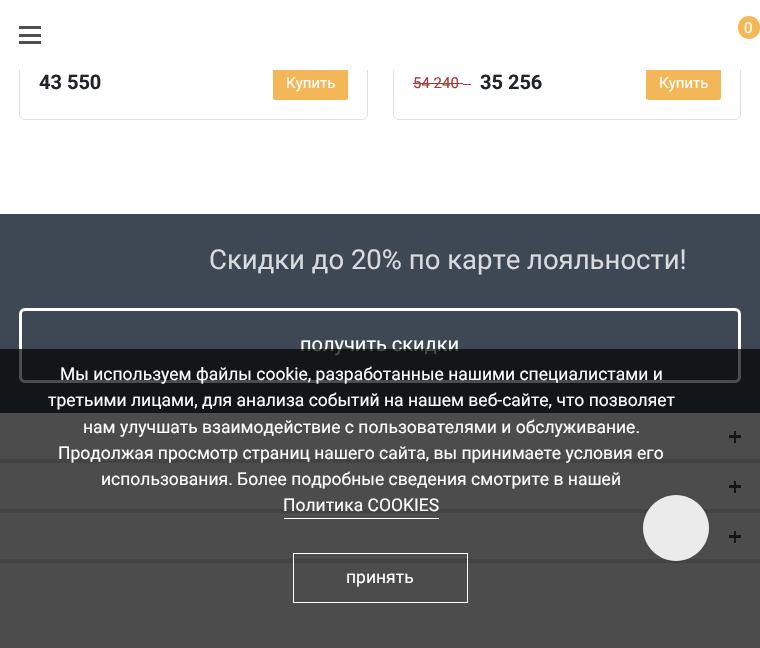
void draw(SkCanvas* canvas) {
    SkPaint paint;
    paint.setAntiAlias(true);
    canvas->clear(0xFFFFFFFF);
    paint.setStyle(SkPaint::kStroke_Style);
    paint.setStrokeWidth(1);
    paint.setColor(0xFFE2DFDF);
    canvas->drawRoundRect(SkRect::MakeXYWH(19.5f, -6.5f, 348, 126), 5.5f, 5.5f, paint);
    paint.setStyle(SkPaint::kFill_Style);
    paint.setColor(0xFFF3B757);
    canvas->drawRoundRect(SkRect::MakeXYWH(274.5f, 66.5f, 72, 32), 1, 1, paint);
    paint.setStyle(SkPaint::kStroke_Style);
    paint.setStrokeWidth(3);
    canvas->drawRoundRect(SkRect::MakeXYWH(274.5f, 66.5f, 72, 32), 1, 1, paint);
    paint.setStrokeWidth(1);
    paint.setColor(0xFFE2DFDF);
    canvas->drawRoundRect(SkRect::MakeXYWH(393.5f, -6.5f, 347, 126), 5.5f, 5.5f, paint);
    paint.setStyle(SkPaint::kFill_Style);
    paint.setColor(0xFFF3B757);
    canvas->drawRoundRect(SkRect::MakeXYWH(647.5f, 66.5f, 72, 32), 1, 1, paint);
    paint.setStyle(SkPaint::kStroke_Style);
    paint.setStrokeWidth(3);
    canvas->drawRoundRect(SkRect::MakeXYWH(647.5f, 66.5f, 72, 32), 1, 1, paint);
    paint.setStyle(SkPaint::kFill_Style);
    paint.setColor(0xFFFFFFFF);
    canvas->drawRect(SkRect::MakeXYWH(19, 0, 722, 70), paint);
    paint.setColor(0xFF4F4E51);
    canvas->drawRect(SkRect::MakeXYWH(19, 26, 22, 3), paint);
    canvas->drawRect(SkRect::MakeXYWH(19, 34, 22, 3), paint);
    canvas->drawRect(SkRect::MakeXYWH(19, 41, 22, 3), paint);
    paint.setColor(0xFFF3B757);
    canvas->drawRoundRect(SkRect::MakeXYWH(738, 16, 22, 23), 11, 11, paint);
    SkFont font1(fontMgr->matchFamilyStyle("Roboto", SkFontStyle::Normal()), 15);
    font1.setSubpixel(true);
    paint.setColor(0xFFFFFFFF);
    canvas->drawString("0", 744, 33, font1, paint);
    SkFont font2(fontMgr->matchFamilyStyle("Roboto", SkFontStyle::Bold()), 20);
    font2.setSubpixel(true);
    paint.setColor(0xFF212529);
    canvas->drawString("43 550", 39, 89, font2, paint);
    paint.setColor(0xFFFFFFFF);
    canvas->drawString("Купить", 286, 88, font1, paint);
    paint.setColor(0xFFA93836);
    canvas->drawString("54 240", 413, 88, font1, paint);
    canvas->drawRect(SkRect::MakeXYWH(413, 83, 50, 1), paint);
    canvas->drawRect(SkRect::MakeXYWH(463, 84, 8, 1), paint);
    paint.setColor(0xFF212529);
    canvas->drawString("35 256", 480, 89, font2, paint);
    paint.setColor(0xFFFFFFFF);
    canvas->drawString("Купить", 659, 88, font1, paint);
    paint.setColor(0xFF3E4854);
    canvas->drawRect(SkRect::MakeXYWH(0, 214, 760, 199), paint);
    SkFont font3(fontMgr->matchFamilyStyle("Roboto", SkFontStyle::Normal()), 27.5f);
    font3.setSubpixel(true);
    paint.setColor(0xFFD8DADD);
    canvas->drawString("Скидки до 20% по карте лояльности!", 209, 269, font3, paint);
    paint.setStyle(SkPaint::kStroke_Style);
    paint.setColor(0xFFFFFFFF);
    canvas->drawRoundRect(SkRect::MakeXYWH(20.5f, 309.5f, 719, 72), 4.5f, 4.5f, paint);
    SkFont font4(fontMgr->matchFamilyStyle("Roboto", SkFontStyle::Normal()), 20);
    font4.setSubpixel(true);
    paint.setStyle(SkPaint::kFill_Style);
    canvas->drawString("получить скидки", 300, 351, font4, paint);
    paint.setColor(0xFFDFDFDF);
    canvas->drawRect(SkRect::MakeXYWH(0, 459, 760, 4), paint);
    paint.setColor(0xFF3E4854);
    canvas->drawRect(SkRect::MakeXYWH(729, 435, 12, 3), paint);
    canvas->drawRect(SkRect::MakeXYWH(734, 431, 2, 12), paint);
    paint.setColor(0xFFDFDFDF);
    canvas->drawRect(SkRect::MakeXYWH(0, 509, 760, 4), paint);
    paint.setColor(0xFF3E4854);
    canvas->drawRect(SkRect::MakeXYWH(729, 485, 12, 3), paint);
    canvas->drawRect(SkRect::MakeXYWH(734, 481, 2, 12), paint);
    paint.setColor(0xFFDFDFDF);
    canvas->drawRect(SkRect::MakeXYWH(0, 559, 760, 4), paint);
    paint.setColor(0xFF3E4854);
    canvas->drawRect(SkRect::MakeXYWH(729, 535, 12, 3), paint);
    canvas->drawRect(SkRect::MakeXYWH(734, 531, 2, 12), paint);
    paint.setColor(0xB3000000);
    canvas->drawRect(SkRect::MakeXYWH(0, 349, 760, 299), paint);
    SkFont font5(fontMgr->matchFamilyStyle("Roboto", SkFontStyle::Normal()), 17.5f);
    font5.setSubpixel(true);
    paint.setColor(0xFFFFFFFF);
    canvas->drawString("Мы используем файлы cookie, разработанные нашими специалистами и", 60, 380, font5, paint);
    canvas->drawString("третьими лицами, для анализа событий на нашем веб-сайте, что позволяет", 48, 406, font5, paint);
    canvas->drawString("нам улучшать взаимодействие с пользователями и обслуживание.", 83, 433, font5, paint);
    canvas->drawString("Продолжая просмотр страниц нашего сайта, вы принимаете условия его", 58, 459, font5, paint);
    canvas->drawString("использования. Более подробные сведения смотрите в нашей", 101, 485, font5, paint);
    canvas->drawString("Политика COOKIES", 283, 511, font5, paint);
    canvas->drawRect(SkRect::MakeXYWH(284, 518, 155, 1), paint);
    paint.setStyle(SkPaint::kStroke_Style);
    paint.setStrokeWidth(1);
    canvas->drawRect(SkRect::MakeXYWH(293.5f, 553.5f, 174, 49), paint);
    paint.setStyle(SkPaint::kFill_Style);
    canvas->drawString("принять", 346, 583, font5, paint);
    paint.setColor(0xFFEBEBEB);
    canvas->drawPath(SkPathBuilder().moveTo(709, 528).cubicTo(709, 546, 694, 561, 676, 561).cubicTo(658, 561, 643, 546, 643, 528).cubicTo(643, 510, 658, 495, 676, 495).cubicTo(694, 495, 709, 510, 709, 528).close().detach(), paint);
}
